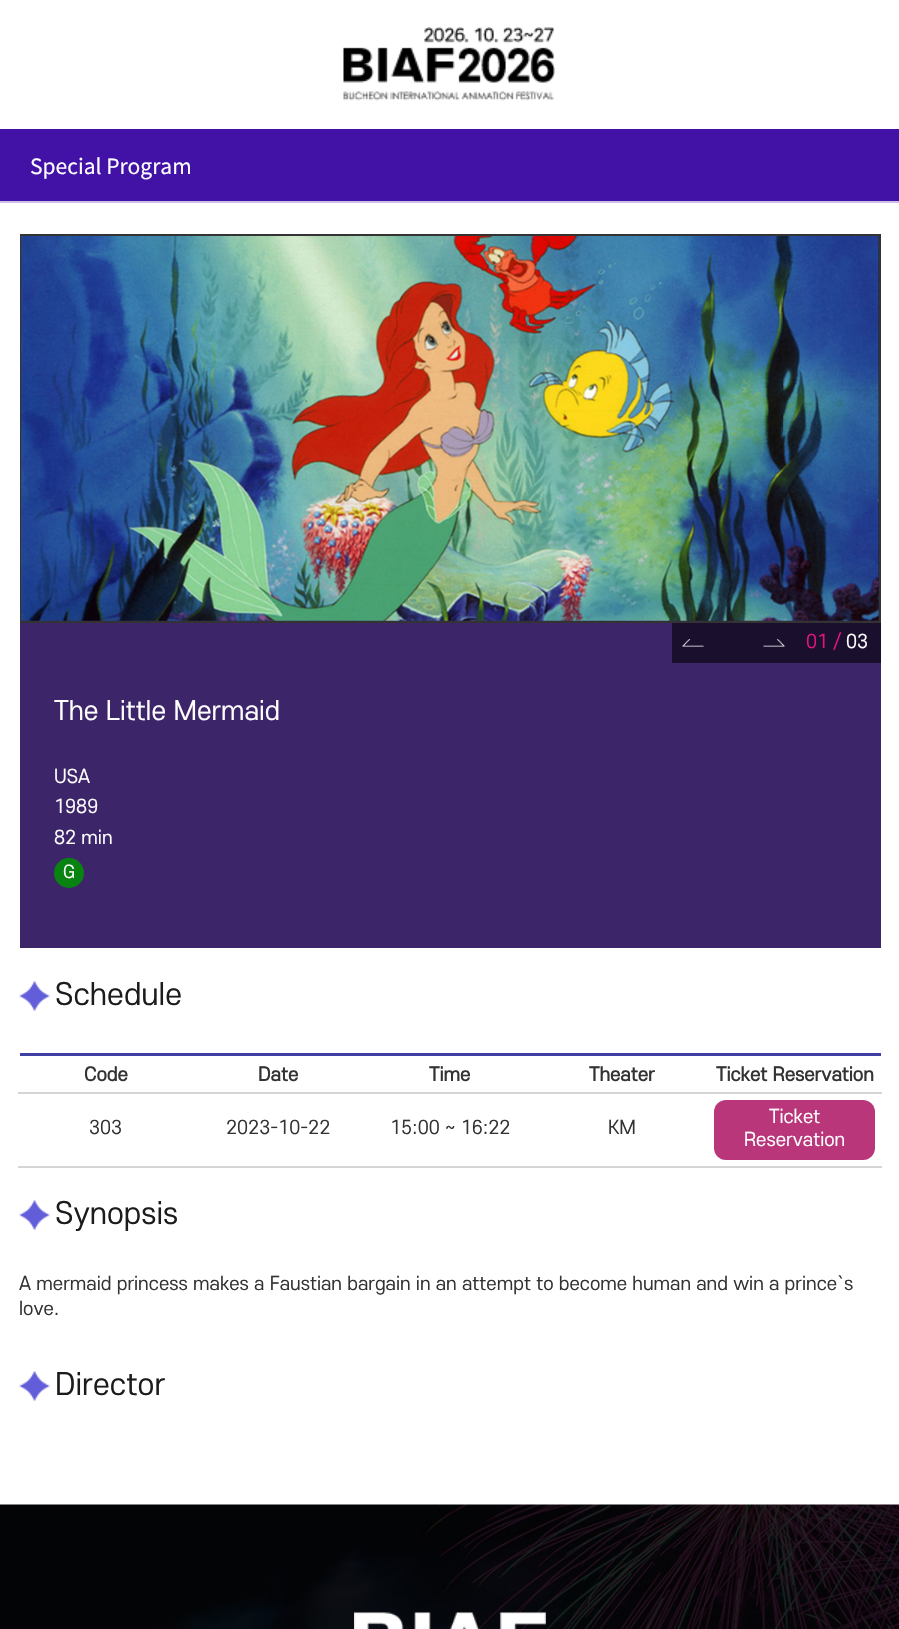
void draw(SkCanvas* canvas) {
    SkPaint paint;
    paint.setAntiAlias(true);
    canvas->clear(0xFFFFFFFF);
    canvas->drawImageRect(SkImages::DeferredFromEncodedData(SkData::MakeFromFileName("img1.png")), SkRect::MakeXYWH(343, 27, 212, 74), SkSamplingOptions());
    paint.setColor(0xFF4211A5);
    canvas->drawRect(SkRect::MakeXYWH(0, 129, 899, 72), paint);
    paint.setColor(0xFFCDC0E7);
    canvas->drawRect(SkRect::MakeXYWH(0, 201, 899, 2), paint);
    SkFont font1(fontMgr->matchFamilyStyle("Noto Sans KR", SkFontStyle::Normal()), 21);
    font1.setSubpixel(true);
    paint.setColor(0xFFFFFFFF);
    canvas->drawString("Special Program", 30, 174, font1, paint);
    paint.setColor(0xFF3C2569);
    canvas->drawRect(SkRect::MakeXYWH(20, 236, 861, 712), paint);
    paint.setStyle(SkPaint::kStroke_Style);
    paint.setStrokeWidth(2);
    paint.setColor(0xFF333333);
    canvas->drawRect(SkRect::MakeXYWH(21, 235, 859, 387), paint);
    canvas->drawImageRect(SkImages::DeferredFromEncodedData(SkData::MakeFromFileName("img2.png")), SkRect::MakeXYWH(21, 236, 1, 385), SkSamplingOptions());
    canvas->drawImageRect(SkImages::DeferredFromEncodedData(SkData::MakeFromFileName("img3.png")), SkRect::MakeXYWH(21, 236, 858, 385), SkSamplingOptions());
    canvas->drawImageRect(SkImages::DeferredFromEncodedData(SkData::MakeFromFileName("img4.png")), SkRect::MakeXYWH(878, 236, 1, 385), SkSamplingOptions());
    paint.setStyle(SkPaint::kFill_Style);
    paint.setColor(0xFF1A102D);
    canvas->drawRect(SkRect::MakeXYWH(672, 623, 209, 40), paint);
    canvas->drawImageRect(SkImages::DeferredFromEncodedData(SkData::MakeFromFileName("img5.png")), SkRect::MakeXYWH(682, 639, 22, 8), SkSamplingOptions());
    canvas->drawImageRect(SkImages::DeferredFromEncodedData(SkData::MakeFromFileName("img6.png")), SkRect::MakeXYWH(763, 639, 22, 8), SkSamplingOptions());
    SkFont font2(fontMgr->matchFamilyStyle("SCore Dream", SkFontStyle::Normal()), 18);
    font2.setSubpixel(true);
    paint.setColor(0xFFE5127F);
    canvas->drawString("01 /", 806, 648, font2, paint);
    paint.setColor(0xFFFFFFFF);
    canvas->drawString("03", 846, 648, font2, paint);
    SkFont font3(fontMgr->matchFamilyStyle("SCore Dream", SkFontStyle::Normal()), 25.5f);
    font3.setSubpixel(true);
    canvas->drawString("The Little Mermaid", 54, 720, font3, paint);
    canvas->drawString("USA", 54, 783, font2, paint);
    canvas->drawString("1989", 54, 813, font2, paint);
    canvas->drawString("82 min", 54, 844, font2, paint);
    paint.setColor(0xFF088210);
    canvas->drawCircle(69, 873, 15, paint);
    SkFont font4(fontMgr->matchFamilyStyle("SCore Dream", SkFontStyle::Normal()), 17);
    font4.setSubpixel(true);
    paint.setColor(0xFFFFFFFF);
    canvas->drawString("G", 63, 878, font4, paint);
    canvas->drawImageRect(SkImages::DeferredFromEncodedData(SkData::MakeFromFileName("img7.png")), SkRect::MakeXYWH(19, 981, 31, 30), SkSamplingOptions());
    SkFont font5(fontMgr->matchFamilyStyle("SCore Dream", SkFontStyle::Normal()), 29.25f);
    font5.setSubpixel(true);
    paint.setColor(0xFF1C1C1C);
    canvas->drawString("Schedule", 55, 1005, font5, paint);
    paint.setColor(0xFF4040A4);
    canvas->drawRect(SkRect::MakeXYWH(20, 1053, 861, 3), paint);
    SkFont font6(fontMgr->matchFamilyStyle("SCore Dream", SkFontStyle::Bold()), 18);
    font6.setSubpixel(true);
    paint.setColor(0xFF333333);
    canvas->drawString("Code", 84, 1081, font6, paint);
    canvas->drawString("Date", 258, 1081, font6, paint);
    canvas->drawString("Time", 429, 1081, font6, paint);
    canvas->drawString("Theater", 589, 1081, font6, paint);
    paint.setColor(0xFFD3D5D7);
    canvas->drawRect(SkRect::MakeXYWH(18, 1092, 864, 2), paint);
    paint.setColor(0xFF333333);
    canvas->drawString("Ticket Reservation", 716, 1081, font6, paint);
    canvas->drawString("303", 89, 1134, font2, paint);
    canvas->drawString("2023-10-22", 226, 1134, font2, paint);
    canvas->drawString("15:00 ~ 16:22", 390, 1134, font2, paint);
    canvas->drawString("KM", 608, 1134, font2, paint);
    paint.setColor(0xFFD3D5D7);
    canvas->drawRect(SkRect::MakeXYWH(18, 1166, 864, 2), paint);
    paint.setColor(0xFFB9367A);
    canvas->drawRoundRect(SkRect::MakeXYWH(714, 1100, 161, 60), 12, 12, paint);
    paint.setColor(0xFFFFFFFF);
    canvas->drawString("Ticket", 769, 1123, font2, paint);
    canvas->drawString("Reservation", 744, 1146, font2, paint);
    canvas->drawImageRect(SkImages::DeferredFromEncodedData(SkData::MakeFromFileName("img7.png")), SkRect::MakeXYWH(19, 1200, 31, 30), SkSamplingOptions());
    paint.setColor(0xFF1C1C1C);
    canvas->drawString("Synopsis", 55, 1224, font5, paint);
    paint.setColor(0xFF333333);
    canvas->drawString("A mermaid princess makes a Faustian bargain in an attempt to become human and win a prince`s", 19, 1290, font2, paint);
    canvas->drawString("love.", 19, 1315, font2, paint);
    canvas->drawImageRect(SkImages::DeferredFromEncodedData(SkData::MakeFromFileName("img7.png")), SkRect::MakeXYWH(19, 1371, 31, 30), SkSamplingOptions());
    paint.setColor(0xFF1C1C1C);
    canvas->drawString("Director", 55, 1395, font5, paint);
    canvas->drawImageRect(SkImages::DeferredFromEncodedData(SkData::MakeFromFileName("img8.png")), SkRect::MakeXYWH(0, 1504, 899, 125), SkSamplingOptions());
    canvas->drawImageRect(SkImages::DeferredFromEncodedData(SkData::MakeFromFileName("img9.png")), SkRect::MakeXYWH(354, 1612, 192, 17), SkSamplingOptions());
}
